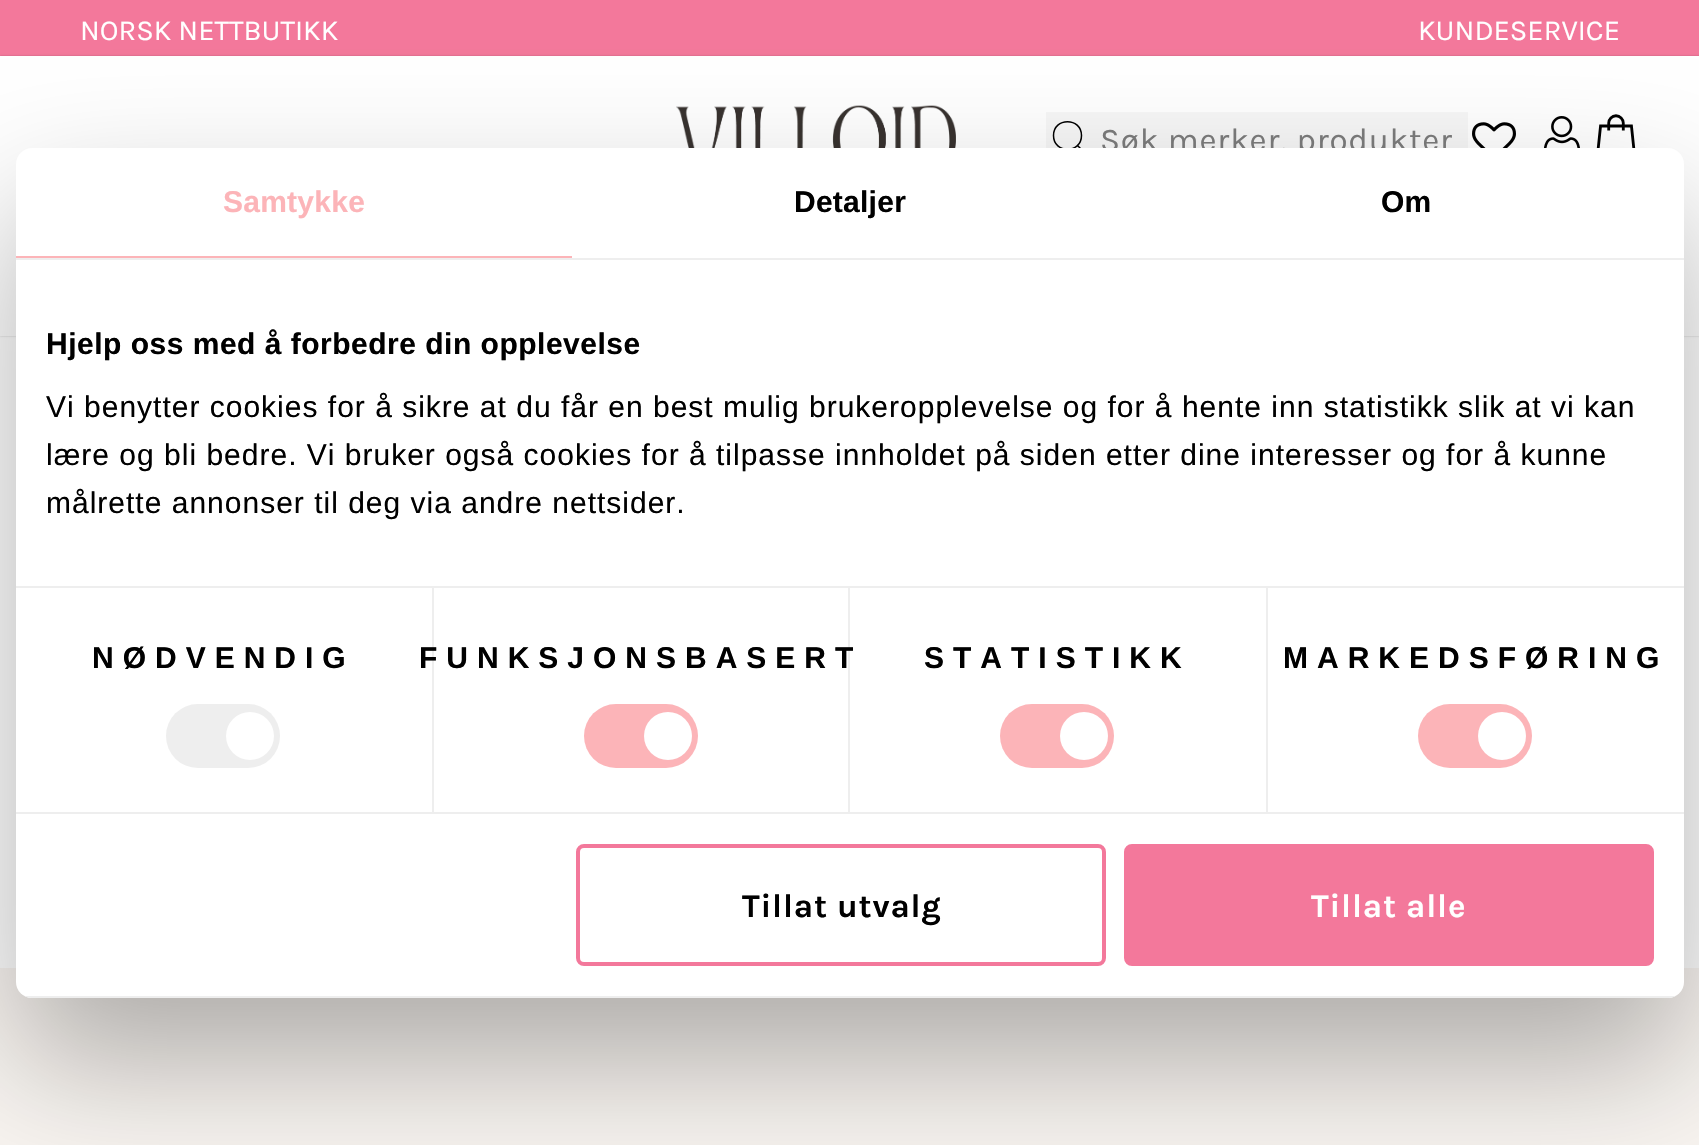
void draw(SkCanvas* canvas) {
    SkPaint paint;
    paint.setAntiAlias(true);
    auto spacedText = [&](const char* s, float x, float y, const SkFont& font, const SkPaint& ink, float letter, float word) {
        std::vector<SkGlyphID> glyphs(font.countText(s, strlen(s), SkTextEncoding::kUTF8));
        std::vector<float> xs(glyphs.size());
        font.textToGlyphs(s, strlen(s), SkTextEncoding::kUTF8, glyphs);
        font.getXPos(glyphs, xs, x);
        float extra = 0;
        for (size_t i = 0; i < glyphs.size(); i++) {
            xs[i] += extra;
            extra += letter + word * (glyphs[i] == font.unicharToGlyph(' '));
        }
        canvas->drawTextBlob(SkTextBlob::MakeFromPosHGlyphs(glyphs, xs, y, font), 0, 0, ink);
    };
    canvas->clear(0xFFFFFFFF);
    paint.setColor(0xFFF3789B);
    canvas->drawRect(SkRect::MakeXYWH(0, 0, 1699, 56), paint);
    SkFont font1(fontMgr->matchFamilyStyle("Karla", SkFontStyle::Normal()), 29);
    font1.setSubpixel(true);
    paint.setColor(0xFFFFFFFF);
    canvas->drawString("NORSK NETTBUTIKK", 80, 40, font1, paint);
    canvas->drawString("KUNDESERVICE", 1418, 40, font1, paint);
    paint.setColor(0x33000000);
    paint.setMaskFilter(SkMaskFilter::MakeBlur(kNormal_SkBlurStyle, 1));
    canvas->drawRect(SkRect::MakeXYWH(0, 56, 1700, 280), paint);
    paint.setMaskFilter(nullptr);
    paint.setColor(0xFFFFFFFF);
    canvas->drawRect(SkRect::MakeXYWH(0, 56, 1699, 280), paint);
    canvas->drawImageRect(SkImages::DeferredFromEncodedData(SkData::MakeFromFileName("img1.png")), SkRect::MakeXYWH(676, 105, 280, 43), SkSamplingOptions());
    paint.setColor(0xFFF7F7F7);
    canvas->drawRect(SkRect::MakeXYWH(1046, 112, 422, 36), paint);
    paint.setStyle(SkPaint::kStroke_Style);
    paint.setStrokeWidth(1.5f);
    paint.setColor(0xFF000000);
    canvas->drawPath(SkPathBuilder().moveTo(1081.5f, 135.5f).cubicTo(1081.5f, 154, 1053.5f, 154, 1053.5f, 135.5f).cubicTo(1053.5f, 117, 1081.5f, 117, 1081.5f, 135.5f).close().moveTo(1086.5f, 154.5f).lineTo(1077.5f, 145.5f).detach(), paint);
    SkFont font2(fontMgr->matchFamilyStyle("Karla", SkFontStyle::Normal()), 33.1f);
    font2.setSubpixel(true);
    paint.setStyle(SkPaint::kFill_Style);
    paint.setColor(0xFF7C7C7C);
    spacedText("Søk merker, produkter", 1100, 151, font2, paint, 0.8f, 0);
    canvas->drawImageRect(SkImages::DeferredFromEncodedData(SkData::MakeFromFileName("img2.png")), SkRect::MakeXYWH(1472, 122, 44, 26), SkSamplingOptions());
    canvas->drawImageRect(SkImages::DeferredFromEncodedData(SkData::MakeFromFileName("img3.png")), SkRect::MakeXYWH(1544, 116, 36, 32), SkSamplingOptions());
    canvas->drawImageRect(SkImages::DeferredFromEncodedData(SkData::MakeFromFileName("img4.png")), SkRect::MakeXYWH(1596, 114, 40, 34), SkSamplingOptions());
    paint.setColor(0xFFF9F5F1);
    canvas->drawRect(SkRect::MakeXYWH(0, 968, 1699, 177), paint);
    paint.setColor(0x4D000000);
    paint.setMaskFilter(SkMaskFilter::MakeBlur(kNormal_SkBlurStyle, 68));
    canvas->drawRoundRect(SkRect::MakeXYWH(16, 212, 1668, 850), 16, 16, paint);
    paint.setMaskFilter(nullptr);
    paint.setColor(0xFFFFFFFF);
    canvas->drawRoundRect(SkRect::MakeXYWH(16, 148, 1668, 850), 16, 16, paint);
    paint.setColor(0xFFEEEEEE);
    canvas->drawRect(SkRect::MakeXYWH(16, 258, 1668, 2), paint);
    paint.setColor(0xFFFCB4B8);
    canvas->drawRect(SkRect::MakeXYWH(16, 256, 556, 2), paint);
    SkFont font3(fontMgr->matchFamilyStyle("Liberation Sans", SkFontStyle::Bold()), 30);
    font3.setSubpixel(true);
    spacedText("Samtykke", 223, 212, font3, paint, 0.25f, 0);
    paint.setColor(0xFF000000);
    spacedText("Detaljer", 794, 212, font3, paint, 0.25f, 0);
    spacedText("Om", 1381, 212, font3, paint, 0.25f, 0);
    paint.setColor(0xFFEEEEEE);
    canvas->drawRect(SkRect::MakeXYWH(16, 586, 1668, 2), paint);
    paint.setColor(0xFF000000);
    spacedText("Hjelp oss med å forbedre din opplevelse", 46, 354, font3, paint, 0.5f, 0);
    SkFont font4(fontMgr->matchFamilyStyle("Liberation Sans", SkFontStyle::Normal()), 30);
    font4.setSubpixel(true);
    spacedText("Vi benytter cookies for å sikre at du får en best mulig brukeropplevelse og for å hente inn statistikk slik at vi kan", 46, 417, font4, paint, 1, 0);
    spacedText("lære og bli bedre. Vi bruker også cookies for å tilpasse innholdet på siden etter dine interesser og for å kunne", 46, 465, font4, paint, 1, 0);
    spacedText("målrette annonser til deg via andre nettsider.", 46, 513, font4, paint, 1, 0);
    paint.setColor(0xFFEEEEEE);
    canvas->drawRect(SkRect::MakeXYWH(16, 812, 1668, 2), paint);
    canvas->drawRect(SkRect::MakeXYWH(432, 588, 2, 224), paint);
    paint.setColor(0xFF000000);
    spacedText("NØDVENDIG", 92, 668, font3, paint, 9, 0);
    paint.setColor(0xFFEEEEEE);
    canvas->drawRoundRect(SkRect::MakeXYWH(166, 704, 114, 64), 32, 32, paint);
    paint.setColor(0xFFFFFFFF);
    canvas->drawCircle(250, 736, 24, paint);
    paint.setColor(0xFFEEEEEE);
    canvas->drawRect(SkRect::MakeXYWH(848, 588, 2, 224), paint);
    paint.setColor(0xFF000000);
    spacedText("FUNKSJONSBASERT", 419, 668, font3, paint, 9, 0);
    paint.setColor(0xFFFCB4B8);
    canvas->drawRoundRect(SkRect::MakeXYWH(584, 704, 114, 64), 32, 32, paint);
    paint.setColor(0xFFFFFFFF);
    canvas->drawCircle(668, 736, 24, paint);
    paint.setColor(0xFFEEEEEE);
    canvas->drawRect(SkRect::MakeXYWH(1266, 588, 2, 224), paint);
    paint.setColor(0xFF000000);
    spacedText("STATISTIKK", 924, 668, font3, paint, 9, 0);
    paint.setColor(0xFFFCB4B8);
    canvas->drawRoundRect(SkRect::MakeXYWH(1000, 704, 114, 64), 32, 32, paint);
    paint.setColor(0xFFFFFFFF);
    canvas->drawCircle(1084, 736, 24, paint);
    paint.setColor(0xFF000000);
    spacedText("MARKEDSFØRING", 1283, 668, font3, paint, 9, 0);
    paint.setColor(0xFFFCB4B8);
    canvas->drawRoundRect(SkRect::MakeXYWH(1418, 704, 114, 64), 32, 32, paint);
    paint.setColor(0xFFFFFFFF);
    canvas->drawCircle(1502, 736, 24, paint);
    canvas->save();
    canvas->clipPath(SkPathBuilder().moveTo(32, 148).lineTo(1668, 148).cubicTo(1677, 148, 1684, 155, 1684, 164).lineTo(1684, 982).cubicTo(1684, 991, 1677, 998, 1668, 998).lineTo(32, 998).cubicTo(23, 998, 16, 991, 16, 982).lineTo(16, 164).cubicTo(16, 155, 23, 148, 32, 148).close().detach(), true);
    paint.setColor(0xFFEEEEEE);
    canvas->drawRect(SkRect::MakeXYWH(16, 996, 1668, 2), paint);
    canvas->restore();
    paint.setStyle(SkPaint::kStroke_Style);
    paint.setStrokeWidth(4);
    paint.setColor(0xFFF3789B);
    canvas->drawRoundRect(SkRect::MakeXYWH(578, 846, 526, 118), 6, 6, paint);
    SkFont font5(fontMgr->matchFamilyStyle("Karla", SkFontStyle::Bold()), 33.1f);
    font5.setSubpixel(true);
    paint.setStyle(SkPaint::kFill_Style);
    paint.setColor(0xFF000000);
    spacedText("Tillat utvalg", 742, 917, font5, paint, 0.8f, 0);
    paint.setColor(0xFFF3789B);
    canvas->drawRoundRect(SkRect::MakeXYWH(1126, 846, 526, 118), 6, 6, paint);
    paint.setStyle(SkPaint::kStroke_Style);
    canvas->drawRoundRect(SkRect::MakeXYWH(1126, 846, 526, 118), 6, 6, paint);
    paint.setStyle(SkPaint::kFill_Style);
    paint.setColor(0xFFFFFFFF);
    spacedText("Tillat alle", 1311, 917, font5, paint, 0.8f, 0);
}
